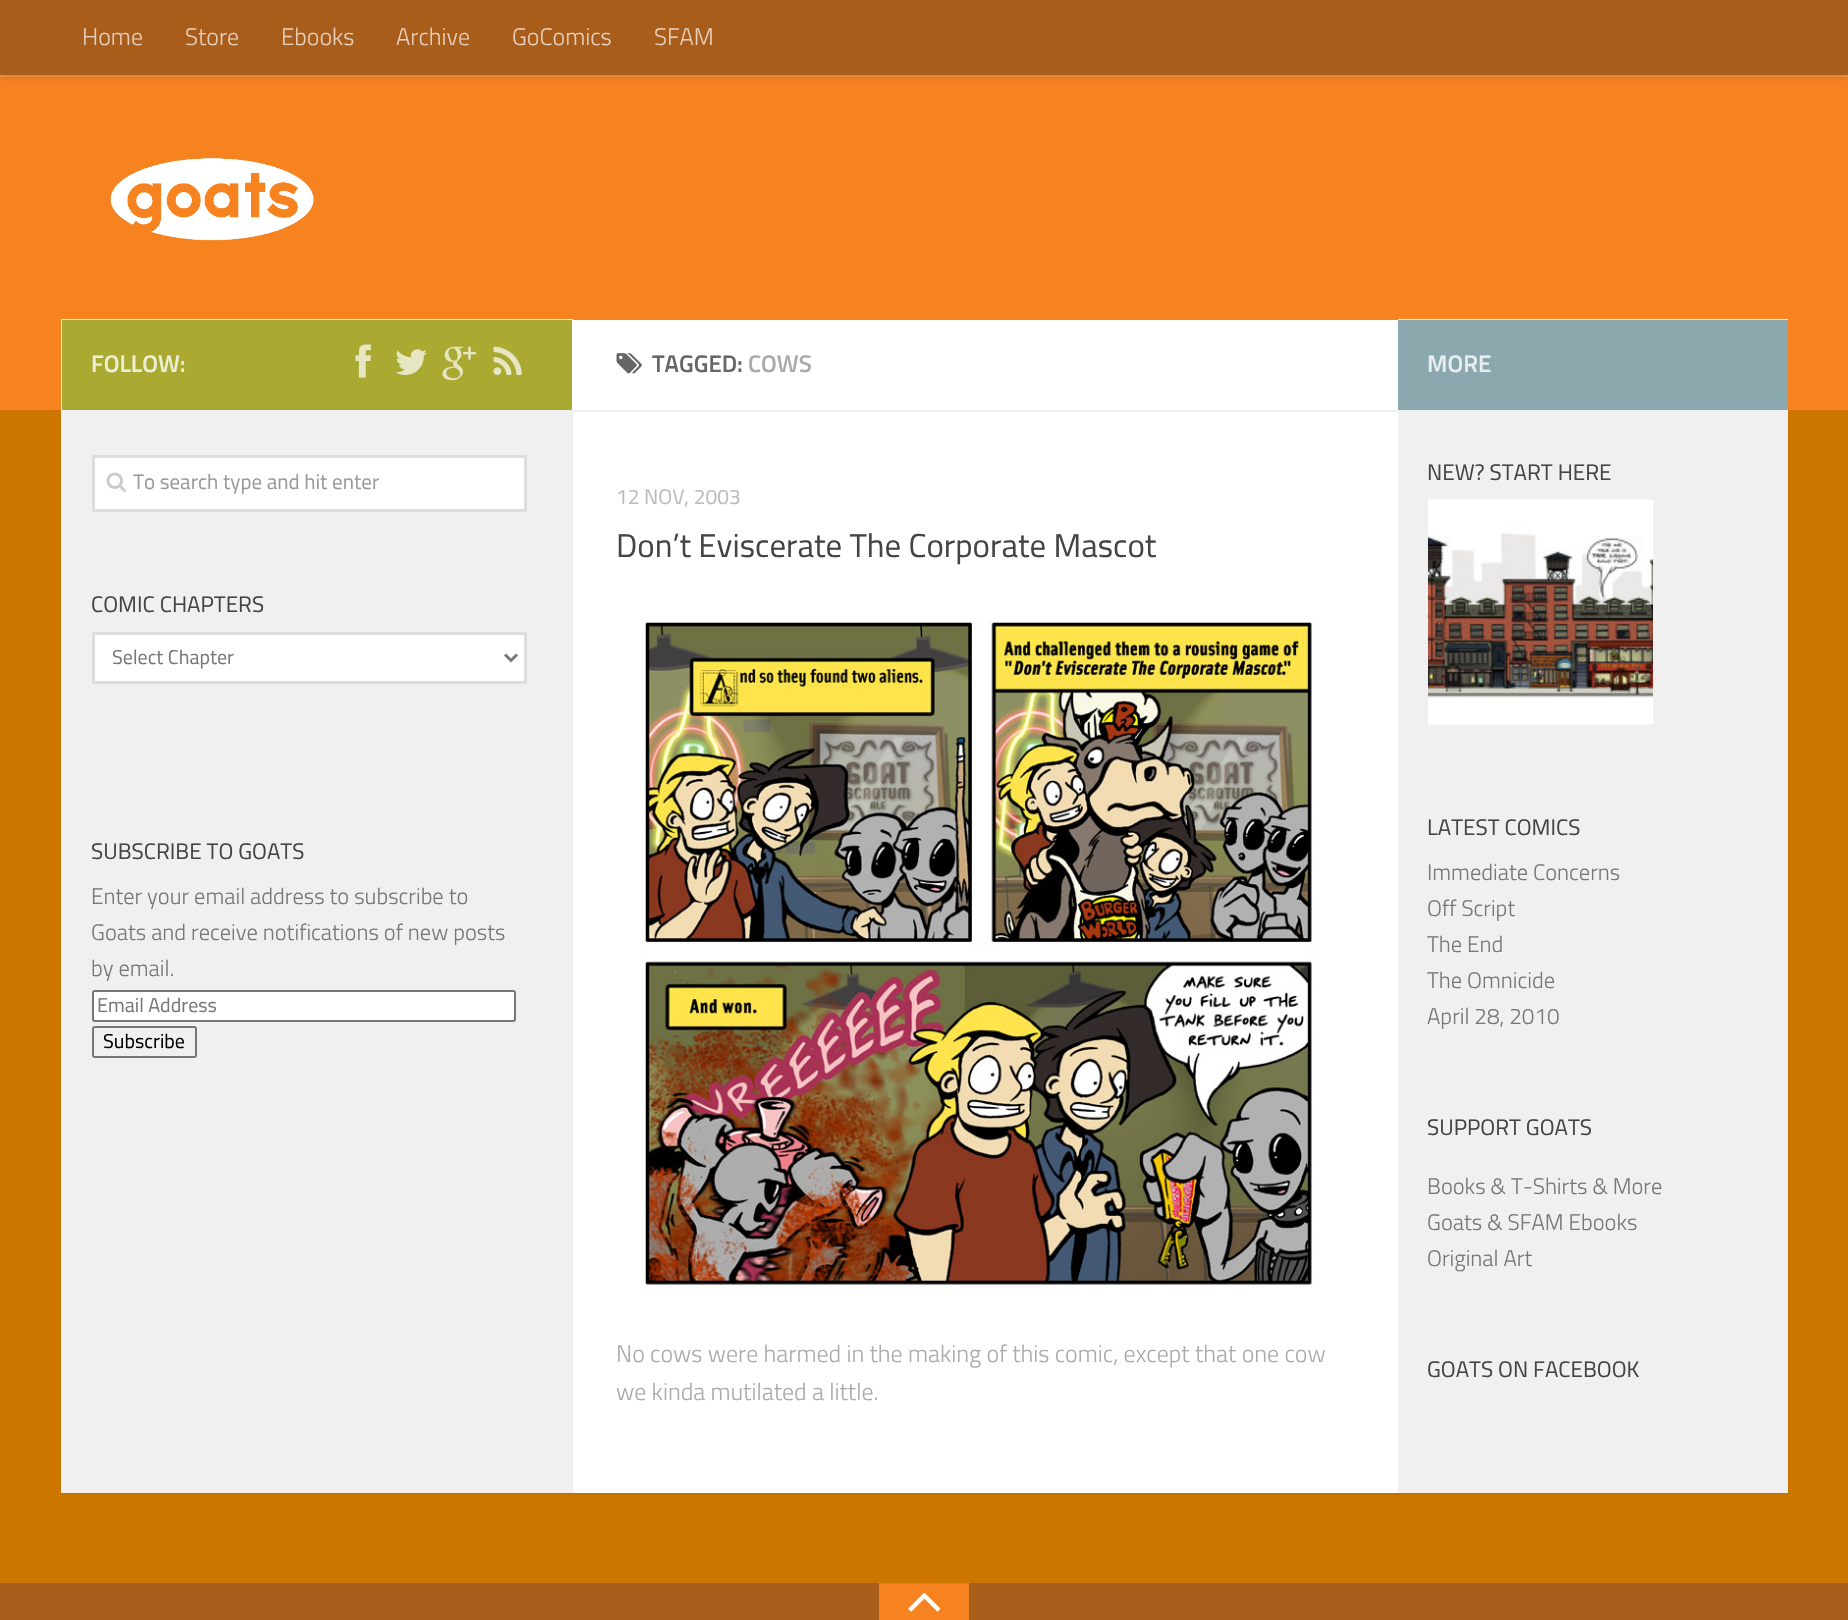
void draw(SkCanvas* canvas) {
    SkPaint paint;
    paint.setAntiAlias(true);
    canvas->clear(0xFFCC7600);
    paint.setColor(0x1A000000);
    paint.setMaskFilter(SkMaskFilter::MakeBlur(kNormal_SkBlurStyle, 1));
    canvas->drawRect(SkRect::MakeXYWH(62, 321, 1726, 1173), paint);
    paint.setMaskFilter(nullptr);
    paint.setColor(0xFFF68220);
    canvas->drawRect(SkRect::MakeXYWH(0, 77, 1848, 333), paint);
    paint.setColor(0xFFF79541);
    canvas->drawRect(SkRect::MakeXYWH(0, 75, 1848, 2), paint);
    paint.setColor(0x33000000);
    paint.setMaskFilter(SkMaskFilter::MakeBlur(kNormal_SkBlurStyle, 4));
    canvas->drawRect(SkRect::MakeXYWH(0, 0, 1848, 75), paint);
    paint.setMaskFilter(nullptr);
    paint.setColor(0xFFA85D1B);
    canvas->drawRect(SkRect::MakeXYWH(0, 0, 1848, 75), paint);
    SkFont font1(fontMgr->matchFamilyStyle("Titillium", SkFontStyle(300, SkFontStyle::kNormal_Width, SkFontStyle::kUpright_Slant)), 24);
    font1.setSubpixel(true);
    paint.setColor(0xFFE5CEBB);
    canvas->drawString("Home", 82, 45, font1, paint);
    canvas->drawString("Store", 185, 45, font1, paint);
    canvas->drawString("Ebooks", 281, 45, font1, paint);
    canvas->drawString("Archive", 396, 45, font1, paint);
    canvas->drawString("GoComics", 512, 45, font1, paint);
    canvas->drawString("SFAM", 654, 45, font1, paint);
    canvas->drawImageRect(SkImages::DeferredFromEncodedData(SkData::MakeFromFileName("img1.png")), SkRect::MakeXYWH(110, 158, 204, 83), SkSamplingOptions());
    paint.setColor(0xFFFFFFFF);
    canvas->drawRect(SkRect::MakeXYWH(573, 412, 825, 1081), paint);
    paint.setColor(0xFFF0F0F0);
    canvas->drawRect(SkRect::MakeXYWH(1398, 319, 390, 1174), paint);
    canvas->drawRect(SkRect::MakeXYWH(61, 319, 512, 1174), paint);
    paint.setColor(0xFFAAAA33);
    canvas->drawRect(SkRect::MakeXYWH(62, 320, 510, 90), paint);
    SkFont font2(fontMgr->matchFamilyStyle("Titillium", SkFontStyle(600, SkFontStyle::kNormal_Width, SkFontStyle::kUpright_Slant)), 24);
    font2.setSubpixel(true);
    paint.setColor(0xFFEEEED6);
    canvas->drawString("FOLLOW:", 91, 372, font2, paint);
    canvas->drawImageRect(SkImages::DeferredFromEncodedData(SkData::MakeFromFileName("img2.png")), SkRect::MakeXYWH(355, 344, 16, 34), SkSamplingOptions());
    canvas->drawImageRect(SkImages::DeferredFromEncodedData(SkData::MakeFromFileName("img3.png")), SkRect::MakeXYWH(395, 349, 32, 26), SkSamplingOptions());
    canvas->drawImageRect(SkImages::DeferredFromEncodedData(SkData::MakeFromFileName("img4.png")), SkRect::MakeXYWH(442, 346, 34, 35), SkSamplingOptions());
    canvas->drawImageRect(SkImages::DeferredFromEncodedData(SkData::MakeFromFileName("img5.png")), SkRect::MakeXYWH(493, 346, 29, 29), SkSamplingOptions());
    paint.setColor(0xFFFFFFFF);
    canvas->drawRect(SkRect::MakeXYWH(93.5f, 456.5f, 432, 54), paint);
    paint.setStyle(SkPaint::kStroke_Style);
    paint.setStrokeWidth(3);
    paint.setColor(0xFFDDDDDD);
    canvas->drawRect(SkRect::MakeXYWH(93.5f, 456.5f, 432, 54), paint);
    canvas->drawImageRect(SkImages::DeferredFromEncodedData(SkData::MakeFromFileName("img6.png")), SkRect::MakeXYWH(106, 472, 20, 20), SkSamplingOptions());
    SkFont font3(fontMgr->matchFamilyStyle("Titillium", SkFontStyle::Normal()), 21);
    font3.setSubpixel(true);
    paint.setStyle(SkPaint::kFill_Style);
    paint.setColor(0xFF999999);
    canvas->drawString("To search type and hit enter", 133, 489, font3, paint);
    SkFont font4(fontMgr->matchFamilyStyle("Titillium", SkFontStyle::Normal()), 22.5f);
    font4.setSubpixel(true);
    paint.setColor(0xFF444444);
    canvas->drawString("COMIC CHAPTERS", 91, 612, font4, paint);
    paint.setColor(0xFFFFFFFF);
    canvas->drawRect(SkRect::MakeXYWH(93.5f, 633.5f, 432, 49), paint);
    paint.setStyle(SkPaint::kStroke_Style);
    paint.setColor(0xFFDDDDDD);
    canvas->drawRect(SkRect::MakeXYWH(93.5f, 633.5f, 432, 49), paint);
    paint.setColor(0xFF777777);
    canvas->drawPath(SkPathBuilder().moveTo(505, 654.5f).lineTo(511, 660.5f).lineTo(517, 654.5f).detach(), paint);
    canvas->save();
    canvas->clipRect(SkRect::MakeXYWH(113, 645, 375, 26));
    SkFont font5(fontMgr->matchFamilyStyle("Titillium", SkFontStyle::Normal()), 20);
    font5.setSubpixel(true);
    paint.setStyle(SkPaint::kFill_Style);
    canvas->drawString("Select Chapter", 112, 664, font5, paint);
    canvas->restore();
    paint.setColor(0xFF444444);
    canvas->drawString("SUBSCRIBE TO GOATS", 91, 859, font4, paint);
    SkFont font6(fontMgr->matchFamilyStyle("Titillium", SkFontStyle(300, SkFontStyle::kNormal_Width, SkFontStyle::kUpright_Slant)), 22.5f);
    font6.setSubpixel(true);
    paint.setColor(0xFF777777);
    canvas->drawString("Enter your email address to subscribe to", 91, 904, font6, paint);
    canvas->drawString("Goats and receive notifications of new posts", 91, 940, font6, paint);
    canvas->drawString("by email.", 91, 976, font6, paint);
    paint.setColor(0xFFFFFFFF);
    canvas->drawRoundRect(SkRect::MakeXYWH(93, 991, 422, 30), 2, 2, paint);
    paint.setStyle(SkPaint::kStroke_Style);
    paint.setStrokeWidth(2);
    paint.setColor(0xFF767676);
    canvas->drawRoundRect(SkRect::MakeXYWH(93, 991, 422, 30), 2, 2, paint);
    paint.setStyle(SkPaint::kFill_Style);
    paint.setColor(0xFF777777);
    canvas->drawString("Email Address", 97, 1012, font5, paint);
    paint.setStyle(SkPaint::kStroke_Style);
    paint.setColor(0xFF767676);
    canvas->drawRoundRect(SkRect::MakeXYWH(93, 1027, 103, 30), 2, 2, paint);
    paint.setStyle(SkPaint::kFill_Style);
    paint.setColor(0xFF000000);
    canvas->drawString("Subscribe", 103, 1048, font5, paint);
    paint.setColor(0xFFFFFFFF);
    canvas->drawRect(SkRect::MakeXYWH(572, 320, 826, 90), paint);
    paint.setColor(0xFFEEEEEE);
    canvas->drawRect(SkRect::MakeXYWH(572, 410, 826, 2), paint);
    canvas->drawImageRect(SkImages::DeferredFromEncodedData(SkData::MakeFromFileName("img7.png")), SkRect::MakeXYWH(616, 353, 26, 21), SkSamplingOptions());
    paint.setColor(0xFF666666);
    canvas->drawString("TAGGED:", 652, 372, font2, paint);
    paint.setColor(0xFFAAAAAA);
    canvas->drawString("COWS", 748, 372, font2, paint);
    paint.setColor(0xFFBBBBBB);
    canvas->drawString("12 NOV, 2003", 616, 504, font3, paint);
    SkFont font7(fontMgr->matchFamilyStyle("Titillium", SkFontStyle::Normal()), 33);
    font7.setSubpixel(true);
    paint.setColor(0xFF444444);
    canvas->drawString("Don’t Eviscerate The Corporate Mascot", 616, 557, font7, paint);
    canvas->drawImageRect(SkImages::DeferredFromEncodedData(SkData::MakeFromFileName("img8.png")), SkRect::MakeXYWH(640, 618, 676, 668), SkSamplingOptions());
    paint.setColor(0xFFAAAAAA);
    canvas->drawString("No cows were harmed in the making of this comic, except that one cow", 616, 1362, font1, paint);
    canvas->drawString("we kinda mutilated a little.", 616, 1400, font1, paint);
    paint.setColor(0xFF8AA8AD);
    canvas->drawRect(SkRect::MakeXYWH(1398, 320, 390, 90), paint);
    paint.setColor(0xFFE8EEEF);
    canvas->drawString("MORE", 1427, 372, font2, paint);
    paint.setColor(0xFF444444);
    canvas->drawString("NEW? START HERE", 1427, 480, font4, paint);
    canvas->drawImageRect(SkImages::DeferredFromEncodedData(SkData::MakeFromFileName("img9.png")), SkRect::MakeXYWH(1428, 499, 225, 226), SkSamplingOptions());
    canvas->drawString("LATEST COMICS", 1427, 835, font4, paint);
    paint.setColor(0xFF777777);
    canvas->drawString("Immediate Concerns", 1427, 880, font6, paint);
    canvas->drawString("Off Script", 1427, 916, font6, paint);
    canvas->drawString("The End", 1427, 952, font6, paint);
    canvas->drawString("The Omnicide", 1427, 988, font6, paint);
    canvas->drawString("April 28, 2010", 1427, 1024, font6, paint);
    paint.setColor(0xFF444444);
    canvas->drawString("SUPPORT GOATS", 1427, 1135, font4, paint);
    paint.setColor(0xFF777777);
    canvas->drawString("Books & T-Shirts & More", 1427, 1194, font6, paint);
    canvas->drawString("Goats & SFAM Ebooks", 1427, 1230, font6, paint);
    canvas->drawString("Original Art", 1427, 1266, font6, paint);
    paint.setColor(0xFF444444);
    canvas->drawString("GOATS ON FACEBOOK", 1427, 1377, font4, paint);
    paint.setColor(0xFFA85D1B);
    canvas->drawRect(SkRect::MakeXYWH(0, 1583, 1848, 37), paint);
    paint.setColor(0xFFF68220);
    canvas->drawRect(SkRect::MakeXYWH(879, 1584, 90, 36), paint);
    paint.setColor(0xFFEA7C1E);
    canvas->drawRect(SkRect::MakeXYWH(879, 1583, 90, 1), paint);
    canvas->drawImageRect(SkImages::DeferredFromEncodedData(SkData::MakeFromFileName("img10.png")), SkRect::MakeXYWH(908, 1592, 33, 20), SkSamplingOptions());
}
